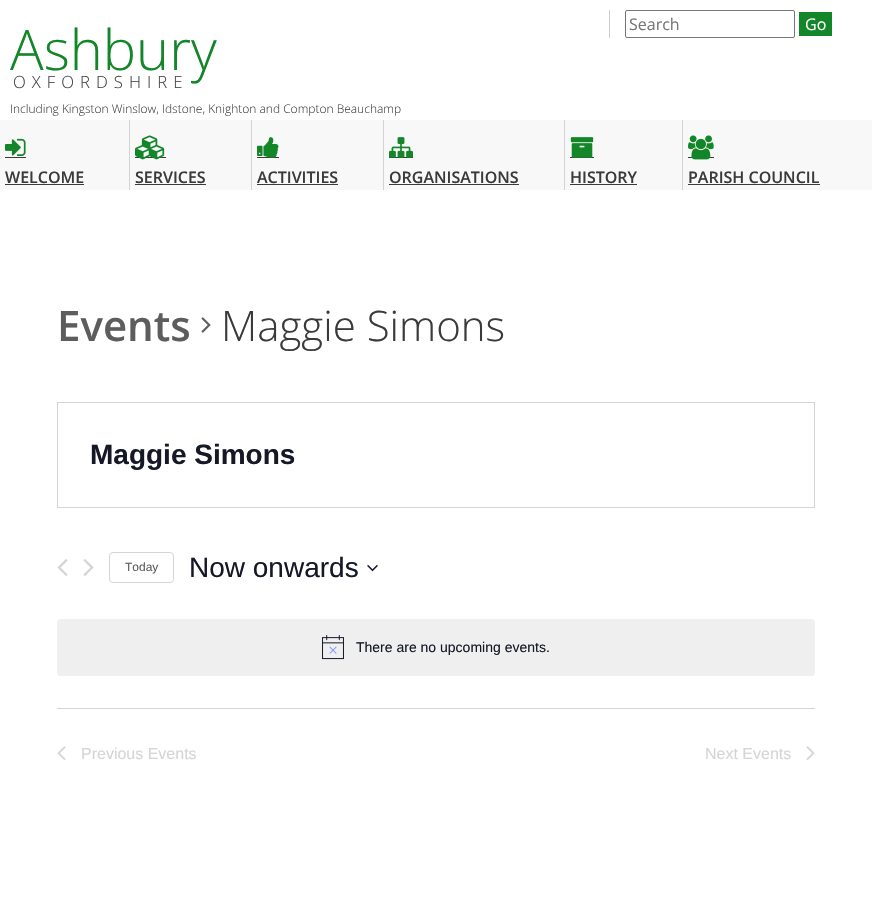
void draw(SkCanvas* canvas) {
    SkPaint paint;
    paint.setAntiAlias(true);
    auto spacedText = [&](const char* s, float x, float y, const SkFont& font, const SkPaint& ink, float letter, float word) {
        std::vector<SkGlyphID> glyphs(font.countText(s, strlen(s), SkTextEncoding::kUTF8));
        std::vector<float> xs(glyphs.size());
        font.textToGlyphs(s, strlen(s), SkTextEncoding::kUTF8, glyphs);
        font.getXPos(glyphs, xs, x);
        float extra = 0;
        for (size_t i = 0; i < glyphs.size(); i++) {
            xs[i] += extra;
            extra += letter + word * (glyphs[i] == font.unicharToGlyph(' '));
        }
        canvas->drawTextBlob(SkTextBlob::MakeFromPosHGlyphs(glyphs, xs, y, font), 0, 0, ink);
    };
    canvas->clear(0xFFFFFFFF);
    paint.setColor(0xFFCDCDCD);
    canvas->drawRect(SkRect::MakeXYWH(609, 10, 1, 28), paint);
    paint.setStyle(SkPaint::kStroke_Style);
    paint.setStrokeWidth(1);
    paint.setColor(0xFF767676);
    canvas->drawRoundRect(SkRect::MakeXYWH(625.5f, 10.5f, 169, 27), 1.5f, 1.5f, paint);
    SkFont font1(fontMgr->matchFamilyStyle("Open Sans", SkFontStyle::Normal()), 16);
    font1.setSubpixel(true);
    paint.setStyle(SkPaint::kFill_Style);
    paint.setColor(0xFF757575);
    canvas->drawString("Search", 629, 30, font1, paint);
    paint.setColor(0xFF128628);
    canvas->drawRect(SkRect::MakeXYWH(799, 12, 33, 24), paint);
    paint.setColor(0xFFFFFFFF);
    canvas->drawString("Go", 805, 30, font1, paint);
    SkFont font2(fontMgr->matchFamilyStyle("Open Sans", SkFontStyle(300, SkFontStyle::kNormal_Width, SkFontStyle::kUpright_Slant)), 56);
    font2.setSubpixel(true);
    paint.setColor(0xFF128628);
    canvas->drawString("Ashbury", 10, 70, font2, paint);
    SkFont font3(fontMgr->matchFamilyStyle("Open Sans", SkFontStyle(300, SkFontStyle::kNormal_Width, SkFontStyle::kUpright_Slant)), 16.75f);
    font3.setSubpixel(true);
    paint.setColor(0xFF444444);
    spacedText("OXFORDSHIRE", 13, 88, font3, paint, 6, 0);
    SkFont font4(fontMgr->matchFamilyStyle("Open Sans", SkFontStyle(300, SkFontStyle::kNormal_Width, SkFontStyle::kUpright_Slant)), 12);
    font4.setSubpixel(true);
    canvas->drawString("Including Kingston Winslow, Idstone, Knighton and Compton Beauchamp", 10, 113, font4, paint);
    paint.setColor(0xFFF8F8F8);
    canvas->drawRect(SkRect::MakeXYWH(0, 120, 872, 70), paint);
    canvas->drawImageRect(SkImages::DeferredFromEncodedData(SkData::MakeFromFileName("img1.png")), SkRect::MakeXYWH(5, 138, 21, 18), SkSamplingOptions());
    paint.setColor(0xFF3A3A3A);
    canvas->drawRect(SkRect::MakeXYWH(5, 157, 21, 1), paint);
    SkFont font5(fontMgr->matchFamilyStyle("Open Sans", SkFontStyle(600, SkFontStyle::kNormal_Width, SkFontStyle::kUpright_Slant)), 16);
    font5.setSubpixel(true);
    canvas->drawString("WELCOME", 5, 183, font5, paint);
    canvas->drawRect(SkRect::MakeXYWH(5, 184, 79, 1), paint);
    paint.setColor(0xFFD2D2D2);
    canvas->drawRect(SkRect::MakeXYWH(129, 120, 1, 70), paint);
    paint.setColor(0xFF3A3A3A);
    canvas->drawRect(SkRect::MakeXYWH(135, 157, 31, 1), paint);
    canvas->drawImageRect(SkImages::DeferredFromEncodedData(SkData::MakeFromFileName("img2.png")), SkRect::MakeXYWH(135, 135, 30, 25), SkSamplingOptions());
    canvas->drawString("SERVICES", 135, 183, font5, paint);
    canvas->drawRect(SkRect::MakeXYWH(135, 184, 71, 1), paint);
    paint.setColor(0xFFD2D2D2);
    canvas->drawRect(SkRect::MakeXYWH(251, 120, 1, 70), paint);
    paint.setColor(0xFF3A3A3A);
    canvas->drawRect(SkRect::MakeXYWH(257, 157, 22, 1), paint);
    canvas->drawImageRect(SkImages::DeferredFromEncodedData(SkData::MakeFromFileName("img3.png")), SkRect::MakeXYWH(257, 137, 22, 21), SkSamplingOptions());
    canvas->drawString("ACTIVITIES", 257, 183, font5, paint);
    canvas->drawRect(SkRect::MakeXYWH(257, 184, 81, 1), paint);
    paint.setColor(0xFFD2D2D2);
    canvas->drawRect(SkRect::MakeXYWH(383, 120, 1, 70), paint);
    paint.setColor(0xFF3A3A3A);
    canvas->drawRect(SkRect::MakeXYWH(389, 157, 24, 1), paint);
    canvas->drawImageRect(SkImages::DeferredFromEncodedData(SkData::MakeFromFileName("img4.png")), SkRect::MakeXYWH(389, 137, 24, 21), SkSamplingOptions());
    canvas->drawString("ORGANISATIONS", 389, 183, font5, paint);
    canvas->drawRect(SkRect::MakeXYWH(389, 184, 130, 1), paint);
    paint.setColor(0xFFD2D2D2);
    canvas->drawRect(SkRect::MakeXYWH(564, 120, 1, 70), paint);
    paint.setColor(0xFF3A3A3A);
    canvas->drawRect(SkRect::MakeXYWH(570, 157, 24, 1), paint);
    canvas->drawImageRect(SkImages::DeferredFromEncodedData(SkData::MakeFromFileName("img5.png")), SkRect::MakeXYWH(570, 137, 24, 21), SkSamplingOptions());
    canvas->drawString("HISTORY", 570, 183, font5, paint);
    canvas->drawRect(SkRect::MakeXYWH(570, 184, 67, 1), paint);
    paint.setColor(0xFFD2D2D2);
    canvas->drawRect(SkRect::MakeXYWH(682, 120, 1, 70), paint);
    paint.setColor(0xFF3A3A3A);
    canvas->drawRect(SkRect::MakeXYWH(688, 157, 26, 1), paint);
    canvas->drawImageRect(SkImages::DeferredFromEncodedData(SkData::MakeFromFileName("img6.png")), SkRect::MakeXYWH(688, 135, 26, 25), SkSamplingOptions());
    canvas->drawString("PARISH COUNCIL", 688, 183, font5, paint);
    canvas->drawRect(SkRect::MakeXYWH(688, 184, 132, 1), paint);
    SkFont font6(fontMgr->matchFamilyStyle("Open Sans", SkFontStyle(600, SkFontStyle::kNormal_Width, SkFontStyle::kUpright_Slant)), 42);
    font6.setSubpixel(true);
    paint.setColor(0xFF5D5D5D);
    canvas->drawString("Events", 57, 341, font6, paint);
    canvas->drawImageRect(SkImages::DeferredFromEncodedData(SkData::MakeFromFileName("img7.png")), SkRect::MakeXYWH(201, 317, 10, 16), SkSamplingOptions());
    SkFont font7(fontMgr->matchFamilyStyle("Open Sans", SkFontStyle(300, SkFontStyle::kNormal_Width, SkFontStyle::kUpright_Slant)), 42);
    font7.setSubpixel(true);
    paint.setColor(0xFF3A3A3A);
    canvas->drawString("Maggie Simons", 221, 341, font7, paint);
    paint.setStyle(SkPaint::kStroke_Style);
    paint.setColor(0xFFD5D5D5);
    canvas->drawRect(SkRect::MakeXYWH(57.5f, 402.5f, 757, 105), paint);
    SkFont font8(fontMgr->matchFamilyStyle("Liberation Sans", SkFontStyle::Bold()), 28);
    font8.setSubpixel(true);
    paint.setStyle(SkPaint::kFill_Style);
    paint.setColor(0xFF141827);
    canvas->drawString("Maggie Simons", 90, 464, font8, paint);
    canvas->drawImageRect(SkImages::DeferredFromEncodedData(SkData::MakeFromFileName("img8.png")), SkRect::MakeXYWH(57, 559, 11, 17), SkSamplingOptions());
    canvas->drawImageRect(SkImages::DeferredFromEncodedData(SkData::MakeFromFileName("img9.png")), SkRect::MakeXYWH(83, 559, 11, 17), SkSamplingOptions());
    paint.setStyle(SkPaint::kStroke_Style);
    paint.setColor(0xFFD5D5D5);
    canvas->drawRoundRect(SkRect::MakeXYWH(109.5f, 552.5f, 64, 30), 3.5f, 3.5f, paint);
    SkFont font9(fontMgr->matchFamilyStyle("Liberation Sans", SkFontStyle::Normal()), 12);
    font9.setSubpixel(true);
    paint.setStyle(SkPaint::kFill_Style);
    paint.setColor(0xFF5D5D5D);
    canvas->drawString("Today", 125, 571, font9, paint);
    SkFont font10(fontMgr->matchFamilyStyle("Liberation Sans", SkFontStyle::Normal()), 28);
    font10.setSubpixel(true);
    paint.setColor(0xFF141827);
    canvas->drawString("Now onwards", 189, 577, font10, paint);
    canvas->drawImageRect(SkImages::DeferredFromEncodedData(SkData::MakeFromFileName("img10.png")), SkRect::MakeXYWH(367, 564, 11, 8), SkSamplingOptions());
    paint.setColor(0xFFEFEFF0);
    canvas->drawRoundRect(SkRect::MakeXYWH(57, 619, 758, 57), 4, 4, paint);
    canvas->drawImageRect(SkImages::DeferredFromEncodedData(SkData::MakeFromFileName("img11.png")), SkRect::MakeXYWH(322, 635, 22, 25), SkSamplingOptions());
    SkFont font11(fontMgr->matchFamilyStyle("Liberation Sans", SkFontStyle::Normal()), 14);
    font11.setSubpixel(true);
    paint.setColor(0xFF141827);
    canvas->drawString("There are no upcoming events.", 356, 652, font11, paint);
    paint.setColor(0xFFD5D5D5);
    canvas->drawRect(SkRect::MakeXYWH(57, 708, 758, 1), paint);
    canvas->drawImageRect(SkImages::DeferredFromEncodedData(SkData::MakeFromFileName("img12.png")), SkRect::MakeXYWH(57, 746, 9, 14), SkSamplingOptions());
    SkFont font12(fontMgr->matchFamilyStyle("Liberation Sans", SkFontStyle::Normal()), 16);
    font12.setSubpixel(true);
    canvas->drawString("Previous Events", 81, 759, font12, paint);
    canvas->drawString("Next Events", 705, 759, font12, paint);
    canvas->drawImageRect(SkImages::DeferredFromEncodedData(SkData::MakeFromFileName("img13.png")), SkRect::MakeXYWH(806, 746, 9, 14), SkSamplingOptions());
}
